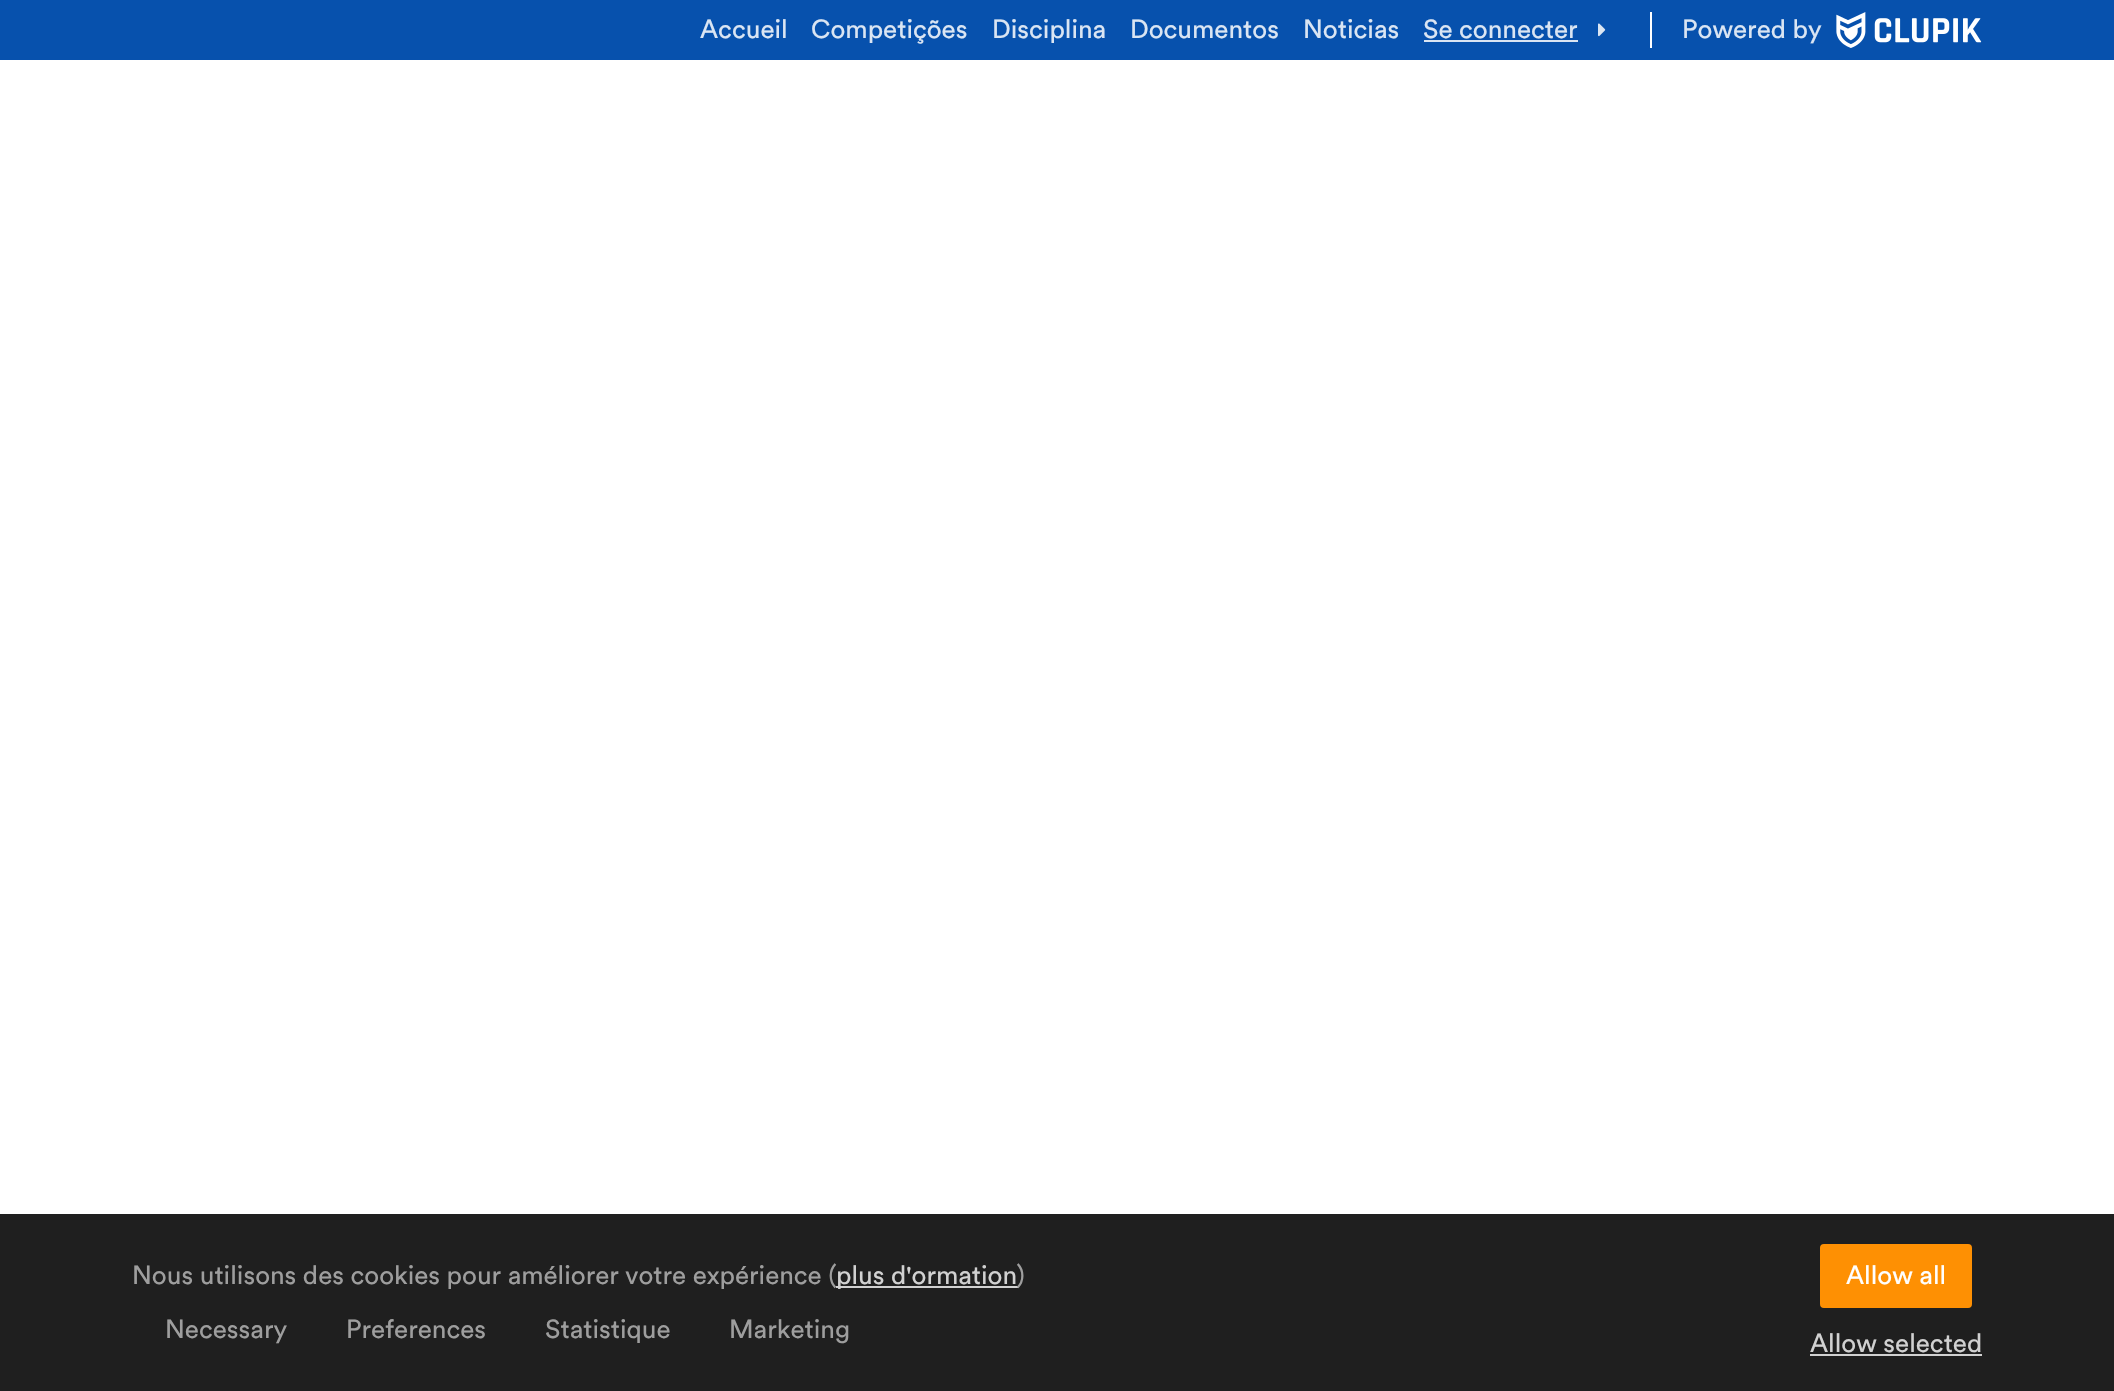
void draw(SkCanvas* canvas) {
    SkPaint paint;
    paint.setAntiAlias(true);
    canvas->clear(0xFFFFFFFF);
    paint.setColor(0xFF0751AD);
    canvas->drawRect(SkRect::MakeXYWH(0, 0, 2114, 60), paint);
    SkFont font1(fontMgr->matchFamilyStyle("Circular", SkFontStyle::Normal()), 26);
    font1.setSubpixel(true);
    paint.setColor(0xFFDAE5F3);
    canvas->drawString("Accueil", 700, 38, font1, paint);
    canvas->drawString("Competições", 811, 38, font1, paint);
    canvas->drawString("Disciplina", 992, 38, font1, paint);
    canvas->drawString("Documentos", 1130, 38, font1, paint);
    canvas->drawString("Noticias", 1303, 38, font1, paint);
    canvas->drawString("Se connecter", 1423, 38, font1, paint);
    canvas->drawRect(SkRect::MakeXYWH(1424, 40, 154, 2), paint);
    canvas->drawImageRect(SkImages::DeferredFromEncodedData(SkData::MakeFromFileName("img1.png")), SkRect::MakeXYWH(1598, 23, 8, 14), SkSamplingOptions());
    paint.setColor(0xFFFFFFFF);
    canvas->drawRect(SkRect::MakeXYWH(1650, 12, 2, 36), paint);
    paint.setColor(0xFFDAE5F3);
    canvas->drawString("Powered by", 1682, 38, font1, paint);
    canvas->drawImageRect(SkImages::DeferredFromEncodedData(SkData::MakeFromFileName("img2.png")), SkRect::MakeXYWH(1836, 12, 146, 36), SkSamplingOptions());
    paint.setColor(0xFF1F1F1F);
    canvas->drawRect(SkRect::MakeXYWH(0, 1214, 2114, 177), paint);
    paint.setColor(0xFF9E9E9E);
    canvas->drawString("Nous utilisons des cookies pour améliorer votre expérience (", 132, 1284, font1, paint);
    paint.setColor(0xFFD1D1D1);
    canvas->drawRect(SkRect::MakeXYWH(836, 1286, 182, 2), paint);
    canvas->drawString("plus d'ormation", 836, 1284, font1, paint);
    paint.setColor(0xFF9E9E9E);
    canvas->drawString(")", 1017, 1284, font1, paint);
    canvas->drawString("Necessary", 165, 1338, font1, paint);
    canvas->drawString("Preferences", 346, 1338, font1, paint);
    canvas->drawString("Statistique", 545, 1338, font1, paint);
    canvas->drawString("Marketing", 729, 1338, font1, paint);
    paint.setColor(0xFFFE9003);
    canvas->drawRoundRect(SkRect::MakeXYWH(1821, 1245, 150, 62), 3, 3, paint);
    paint.setStyle(SkPaint::kStroke_Style);
    paint.setStrokeWidth(2);
    canvas->drawRoundRect(SkRect::MakeXYWH(1821, 1245, 150, 62), 3, 3, paint);
    paint.setStyle(SkPaint::kFill_Style);
    paint.setColor(0xFFFFFFFF);
    canvas->drawString("Allow all", 1846, 1284, font1, paint);
    paint.setColor(0xFFD1D1D1);
    canvas->drawString("Allow selected", 1810, 1352, font1, paint);
    canvas->drawRect(SkRect::MakeXYWH(1810, 1354, 172, 2), paint);
}
